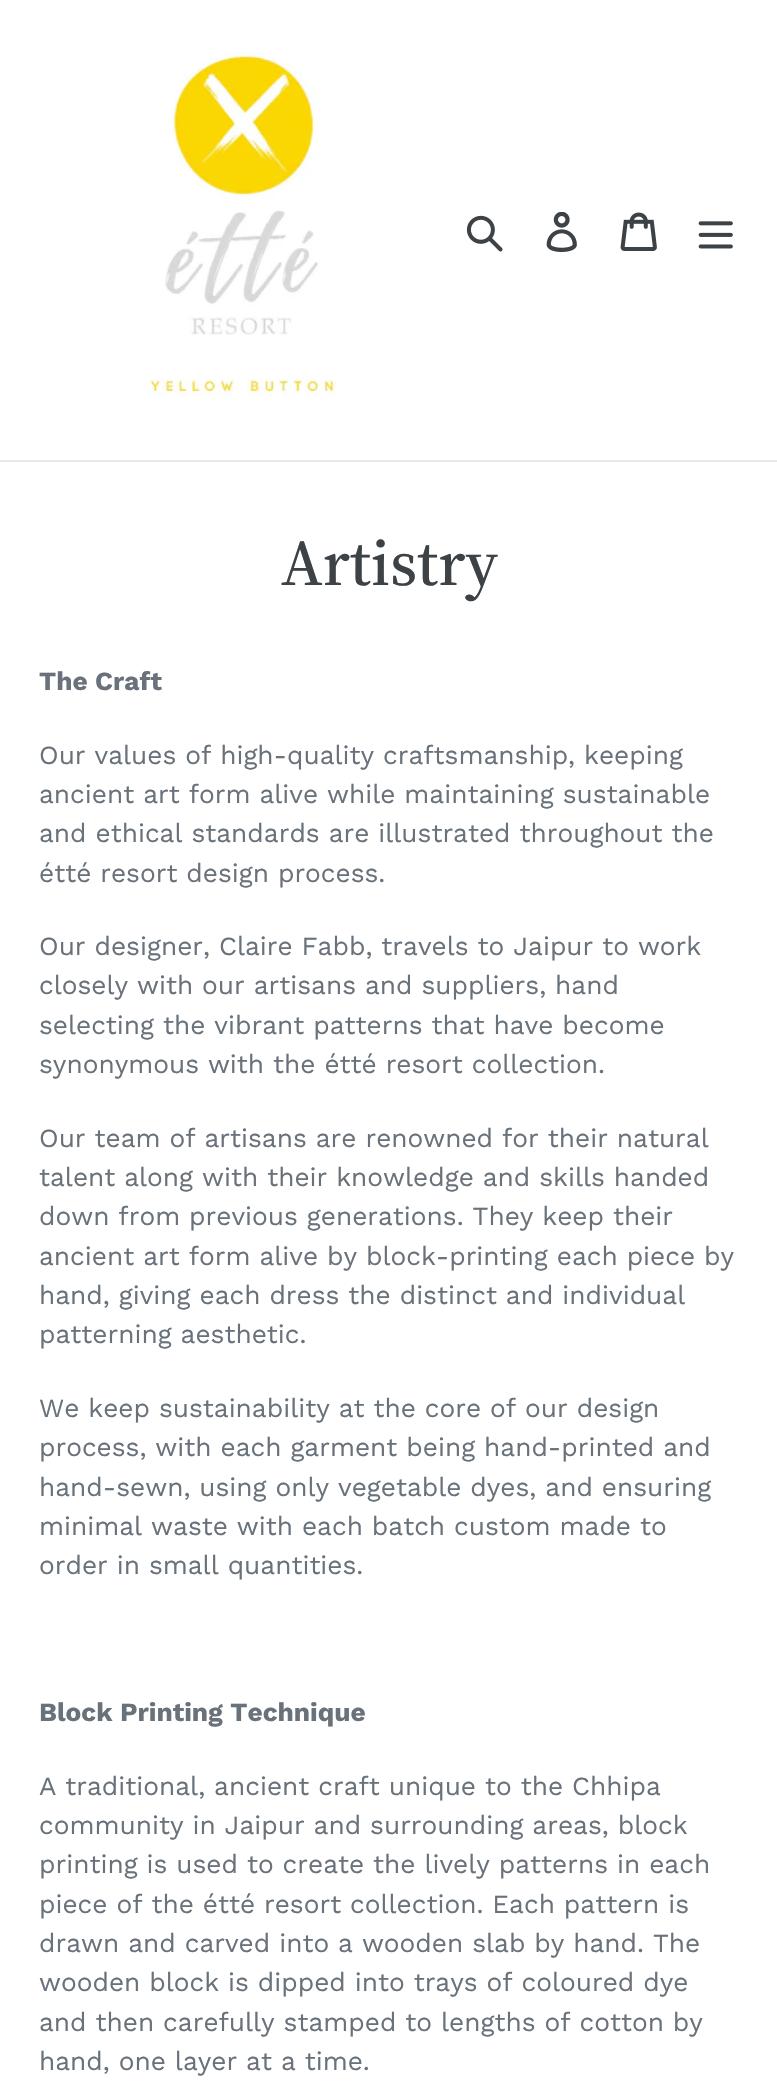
void draw(SkCanvas* canvas) {
    SkPaint paint;
    paint.setAntiAlias(true);
    canvas->clear(0xFFFFFFFF);
    paint.setColor(0xFFE8E9EB);
    canvas->drawRect(SkRect::MakeXYWH(0, 460, 777, 2), paint);
    canvas->drawImageRect(SkImages::DeferredFromEncodedData(SkData::MakeFromFileName("img1.png")), SkRect::MakeXYWH(149, 53, 189, 345), SkSamplingOptions());
    canvas->drawImageRect(SkImages::DeferredFromEncodedData(SkData::MakeFromFileName("img2.png")), SkRect::MakeXYWH(466, 215, 37, 37), SkSamplingOptions());
    canvas->drawImageRect(SkImages::DeferredFromEncodedData(SkData::MakeFromFileName("img3.png")), SkRect::MakeXYWH(546, 212, 31, 40), SkSamplingOptions());
    canvas->drawImageRect(SkImages::DeferredFromEncodedData(SkData::MakeFromFileName("img4.png")), SkRect::MakeXYWH(620, 212, 37, 39), SkSamplingOptions());
    canvas->drawImageRect(SkImages::DeferredFromEncodedData(SkData::MakeFromFileName("img5.png")), SkRect::MakeXYWH(698, 221, 35, 28), SkSamplingOptions());
    SkFont font1(fontMgr->matchFamilyStyle("Source Serif 4", SkFontStyle(500, SkFontStyle::kNormal_Width, SkFontStyle::kUpright_Slant)), 65);
    font1.setSubpixel(true);
    paint.setColor(0xFF3D4246);
    canvas->drawString("Artistry", 281, 585, font1, paint);
    SkFont font2(fontMgr->matchFamilyStyle("Work Sans", SkFontStyle::Bold()), 26.25f);
    font2.setSubpixel(true);
    paint.setColor(0xFF69727B);
    canvas->drawString("The Craft", 39, 690, font2, paint);
    SkFont font3(fontMgr->matchFamilyStyle("Work Sans", SkFontStyle::Normal()), 26.25f);
    font3.setSubpixel(true);
    canvas->drawString("Our values of high-quality craftsmanship, keeping", 39, 764, font3, paint);
    canvas->drawString("ancient art form alive while maintaining sustainable", 39, 803, font3, paint);
    canvas->drawString("and ethical standards are illustrated throughout the", 39, 842, font3, paint);
    canvas->drawString("étté resort design process.", 39, 882, font3, paint);
    canvas->drawString("Our designer, Claire Fabb, travels to Jaipur to work", 39, 955, font3, paint);
    canvas->drawString("closely with our artisans and suppliers, hand", 39, 994, font3, paint);
    canvas->drawString("selecting the vibrant patterns that have become", 39, 1034, font3, paint);
    canvas->drawString("synonymous with the étté resort collection.", 39, 1073, font3, paint);
    canvas->drawString("Our team of artisans are renowned for their natural", 39, 1147, font3, paint);
    canvas->drawString("talent along with their knowledge and skills handed", 39, 1186, font3, paint);
    canvas->drawString("down from previous generations. They keep their", 39, 1225, font3, paint);
    canvas->drawString("ancient art form alive by block-printing each piece by", 39, 1265, font3, paint);
    canvas->drawString("hand, giving each dress the distinct and individual", 39, 1304, font3, paint);
    canvas->drawString("patterning aesthetic.", 39, 1343, font3, paint);
    canvas->drawString("We keep sustainability at the core of our design", 39, 1417, font3, paint);
    canvas->drawString("process, with each garment being hand-printed and", 39, 1456, font3, paint);
    canvas->drawString("hand-sewn, using only vegetable dyes, and ensuring", 39, 1496, font3, paint);
    canvas->drawString("minimal waste with each batch custom made to", 39, 1535, font3, paint);
    canvas->drawString("order in small quantities.", 39, 1574, font3, paint);
    canvas->drawString("Block Printing Technique", 39, 1721, font2, paint);
    canvas->drawString("A traditional, ancient craft unique to the Chhipa", 39, 1795, font3, paint);
    canvas->drawString("community in Jaipur and surrounding areas, block", 39, 1834, font3, paint);
    canvas->drawString("printing is used to create the lively patterns in each", 39, 1873, font3, paint);
    canvas->drawString("piece of the étté resort collection. Each pattern is", 39, 1913, font3, paint);
    canvas->drawString("drawn and carved into a wooden slab by hand. The", 39, 1952, font3, paint);
    canvas->drawString("wooden block is dipped into trays of coloured dye", 39, 1991, font3, paint);
    canvas->drawString("and then carefully stamped to lengths of cotton by", 39, 2031, font3, paint);
    canvas->drawString("hand, one layer at a time.", 39, 2070, font3, paint);
}
